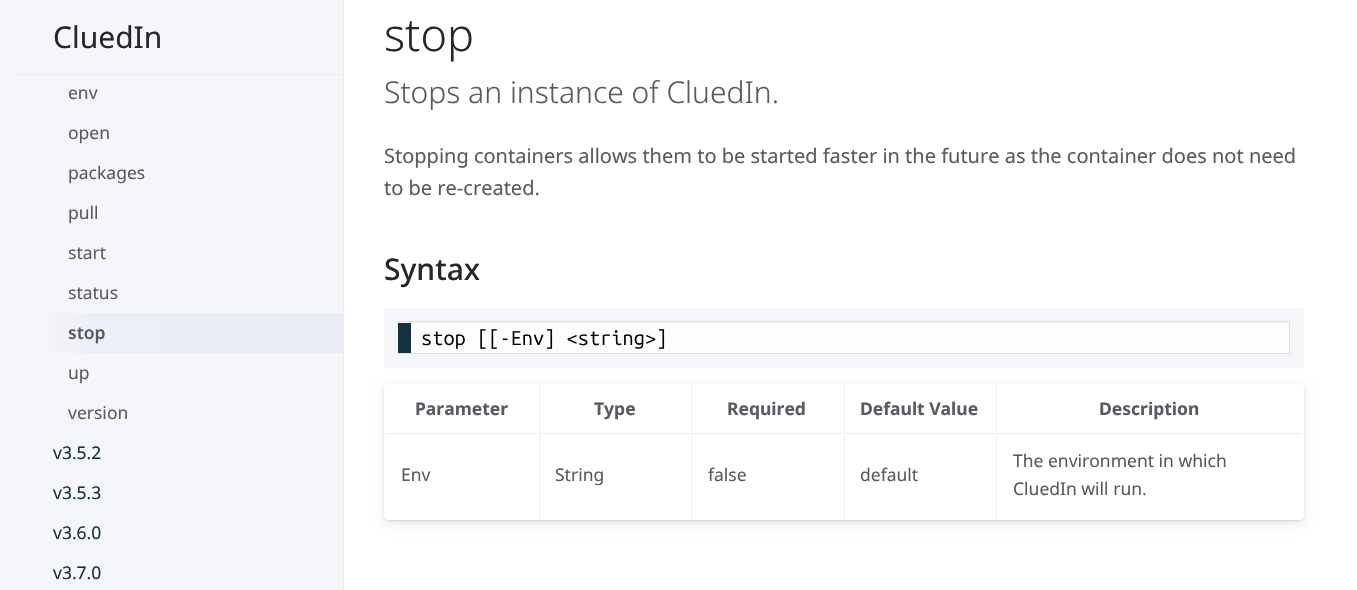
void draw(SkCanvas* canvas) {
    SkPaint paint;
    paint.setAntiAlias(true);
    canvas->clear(0xFFFFFFFF);
    paint.setColor(0xFFF5F6FA);
    canvas->drawRect(SkRect::MakeXYWH(0, 0, 343, 590), paint);
    paint.setColor(0xFFEEEBEE);
    canvas->drawRect(SkRect::MakeXYWH(343, 0, 1, 590), paint);
    canvas->drawRect(SkRect::MakeXYWH(13, 74, 330, 1), paint);
    SkFont font1(fontMgr->matchFamilyStyle("Noto Sans", SkFontStyle::Normal()), 30);
    font1.setSubpixel(true);
    paint.setColor(0xFF27262B);
    canvas->drawString("CluedIn", 53, 48, font1, paint);
    SkFont font2(fontMgr->matchFamilyStyle("Noto Sans", SkFontStyle::Normal()), 17.5f);
    font2.setSubpixel(true);
    paint.setColor(0xFF5C5962);
    canvas->drawString("env", 68, 99, font2, paint);
    canvas->drawString("open", 68, 139, font2, paint);
    canvas->drawString("packages", 68, 179, font2, paint);
    canvas->drawString("pull", 68, 219, font2, paint);
    canvas->drawString("start", 68, 259, font2, paint);
    canvas->drawString("status", 68, 299, font2, paint);
    {
        const SkColor colors[] = {0xFFEBEDF5, 0xFFEDEFF6, 0xFFF5F6FA};
        const float stops[] = {0, 0.8f, 1};
        const SkPoint ends[] = {{343, 333}, {28, 333}};
        paint.setShader(SkGradientShader::MakeLinear(ends, colors, stops, 3, SkTileMode::kClamp));
        paint.setAlpha(255);
    }
    canvas->drawRect(SkRect::MakeXYWH(48, 313, 295, 40), paint);
    SkFont font3(fontMgr->matchFamilyStyle("Noto Sans", SkFontStyle(600, SkFontStyle::kNormal_Width, SkFontStyle::kUpright_Slant)), 17.5f);
    font3.setSubpixel(true);
    paint.setShader(nullptr);
    paint.setColor(0xFF5C5962);
    canvas->drawString("stop", 68, 339, font3, paint);
    canvas->drawString("up", 68, 379, font2, paint);
    canvas->drawString("version", 68, 419, font2, paint);
    paint.setColor(0xFF15303F);
    canvas->drawString("v3.5.2", 53, 459, font2, paint);
    canvas->drawString("v3.5.3", 53, 499, font2, paint);
    canvas->drawString("v3.6.0", 53, 539, font2, paint);
    canvas->drawString("v3.7.0", 53, 579, font2, paint);
    SkFont font4(fontMgr->matchFamilyStyle("Noto Sans", SkFontStyle(300, SkFontStyle::kNormal_Width, SkFontStyle::kUpright_Slant)), 45);
    font4.setSubpixel(true);
    paint.setColor(0xFF27262B);
    canvas->drawString("stop", 384, 51, font4, paint);
    SkFont font5(fontMgr->matchFamilyStyle("Noto Sans", SkFontStyle(300, SkFontStyle::kNormal_Width, SkFontStyle::kUpright_Slant)), 30);
    font5.setSubpixel(true);
    paint.setColor(0xFF5C5962);
    canvas->drawString("Stops an instance of CluedIn.", 384, 103, font5, paint);
    SkFont font6(fontMgr->matchFamilyStyle("Noto Sans", SkFontStyle::Normal()), 20);
    font6.setSubpixel(true);
    canvas->drawString("Stopping containers allows them to be started faster in the future as the container does not need", 384, 163, font6, paint);
    canvas->drawString("to be re-created.", 384, 195, font6, paint);
    SkFont font7(fontMgr->matchFamilyStyle("Noto Sans", SkFontStyle(500, SkFontStyle::kNormal_Width, SkFontStyle::kUpright_Slant)), 30);
    font7.setSubpixel(true);
    paint.setColor(0xFF27262B);
    canvas->drawString("Syntax", 384, 280, font7, paint);
    canvas->save();
    canvas->clipPath(SkPathBuilder(SkPathFillType::kEvenOdd).moveTo(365, 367).lineTo(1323, 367).lineTo(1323, 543).lineTo(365, 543).close().moveTo(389, 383).lineTo(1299, 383).cubicTo(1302, 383, 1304, 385, 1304, 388).lineTo(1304, 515).cubicTo(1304, 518, 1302, 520, 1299, 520).lineTo(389, 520).cubicTo(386, 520, 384, 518, 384, 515).lineTo(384, 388).cubicTo(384, 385, 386, 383, 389, 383).close().detach(), true);
    paint.setColor(0x14000000);
    paint.setMaskFilter(SkMaskFilter::MakeBlur(kNormal_SkBlurStyle, 6));
    canvas->drawRoundRect(SkRect::MakeXYWH(384, 386, 920, 138), 5, 5, paint);
    paint.setMaskFilter(nullptr);
    canvas->restore();
    paint.setColor(0xFFF5F6FA);
    canvas->drawRect(SkRect::MakeXYWH(384, 308, 920, 60), paint);
    paint.setStyle(SkPaint::kStroke_Style);
    paint.setStrokeWidth(1);
    paint.setColor(0xFFDFDFDF);
    canvas->drawRect(SkRect::MakeXYWH(398.5f, 321.5f, 891, 32), paint);
    paint.setStyle(SkPaint::kFill_Style);
    paint.setColor(0xFF15303F);
    canvas->drawPath(SkPathBuilder().moveTo(398, 323).lineTo(398, 353).lineTo(1288, 353).lineTo(1288, 352).lineTo(399, 352).lineTo(399, 323).close().detach(), paint);
    paint.setColor(0xFFFDFDFD);
    canvas->drawRect(SkRect::MakeXYWH(411, 323, 878, 30), paint);
    paint.setColor(0xFF15303F);
    canvas->drawRect(SkRect::MakeXYWH(399, 323, 12, 29), paint);
    SkFont font8(fontMgr->matchFamilyStyle("Ubuntu Mono", SkFontStyle::Normal()), 20);
    font8.setSubpixel(true);
    paint.setColor(0xFF000000);
    canvas->drawString("stop [[-Env] <string>]", 421, 345, font8, paint);
    canvas->save();
    canvas->clipPath(SkPathBuilder(SkPathFillType::kEvenOdd).moveTo(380, 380).lineTo(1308, 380).lineTo(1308, 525).lineTo(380, 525).close().moveTo(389, 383).lineTo(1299, 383).cubicTo(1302, 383, 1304, 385, 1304, 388).lineTo(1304, 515).cubicTo(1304, 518, 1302, 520, 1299, 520).lineTo(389, 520).cubicTo(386, 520, 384, 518, 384, 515).lineTo(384, 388).cubicTo(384, 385, 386, 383, 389, 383).close().detach(), true);
    paint.setColor(0x1F000000);
    paint.setMaskFilter(SkMaskFilter::MakeBlur(kNormal_SkBlurStyle, 1));
    canvas->drawRoundRect(SkRect::MakeXYWH(384, 384, 920, 137), 5, 5, paint);
    paint.setMaskFilter(nullptr);
    canvas->restore();
    paint.setColor(0xFFEEEBEE);
    canvas->drawRect(SkRect::MakeXYWH(386, 433, 150, 1), paint);
    SkFont font9(fontMgr->matchFamilyStyle("Noto Sans", SkFontStyle::Bold()), 17.5f);
    font9.setSubpixel(true);
    paint.setColor(0xFF5C5962);
    canvas->drawString("Parameter", 415, 415, font9, paint);
    paint.setColor(0xFFEEEBEE);
    canvas->drawRect(SkRect::MakeXYWH(539, 433, 150, 1), paint);
    canvas->drawRect(SkRect::MakeXYWH(539, 385, 1, 49), paint);
    paint.setColor(0xFF5C5962);
    canvas->drawString("Type", 594, 415, font9, paint);
    paint.setColor(0xFFEEEBEE);
    canvas->drawRect(SkRect::MakeXYWH(691, 433, 150, 1), paint);
    canvas->drawRect(SkRect::MakeXYWH(691, 385, 1, 49), paint);
    paint.setColor(0xFF5C5962);
    canvas->drawString("Required", 727, 415, font9, paint);
    paint.setColor(0xFFEEEBEE);
    canvas->drawRect(SkRect::MakeXYWH(844, 433, 150, 1), paint);
    canvas->drawRect(SkRect::MakeXYWH(844, 385, 1, 49), paint);
    paint.setColor(0xFF5C5962);
    canvas->drawString("Default Value", 860, 415, font9, paint);
    paint.setColor(0xFFEEEBEE);
    canvas->drawRect(SkRect::MakeXYWH(996, 433, 305, 1), paint);
    canvas->drawRect(SkRect::MakeXYWH(996, 385, 1, 49), paint);
    paint.setColor(0xFF5C5962);
    canvas->drawString("Description", 1099, 415, font9, paint);
    canvas->drawString("Env", 401, 481, font2, paint);
    paint.setColor(0xFFEEEBEE);
    canvas->drawRect(SkRect::MakeXYWH(539, 436, 1, 82), paint);
    paint.setColor(0xFF5C5962);
    canvas->drawString("String", 555, 481, font2, paint);
    paint.setColor(0xFFEEEBEE);
    canvas->drawRect(SkRect::MakeXYWH(691, 436, 1, 82), paint);
    paint.setColor(0xFF5C5962);
    canvas->drawString("false", 708, 481, font2, paint);
    paint.setColor(0xFFEEEBEE);
    canvas->drawRect(SkRect::MakeXYWH(844, 436, 1, 82), paint);
    paint.setColor(0xFF5C5962);
    canvas->drawString("default", 860, 481, font2, paint);
    paint.setColor(0xFFEEEBEE);
    canvas->drawRect(SkRect::MakeXYWH(996, 436, 1, 82), paint);
    paint.setColor(0xFF5C5962);
    canvas->drawString("The environment in which", 1013, 467, font2, paint);
    canvas->drawString("CluedIn will run.", 1013, 495, font2, paint);
}
